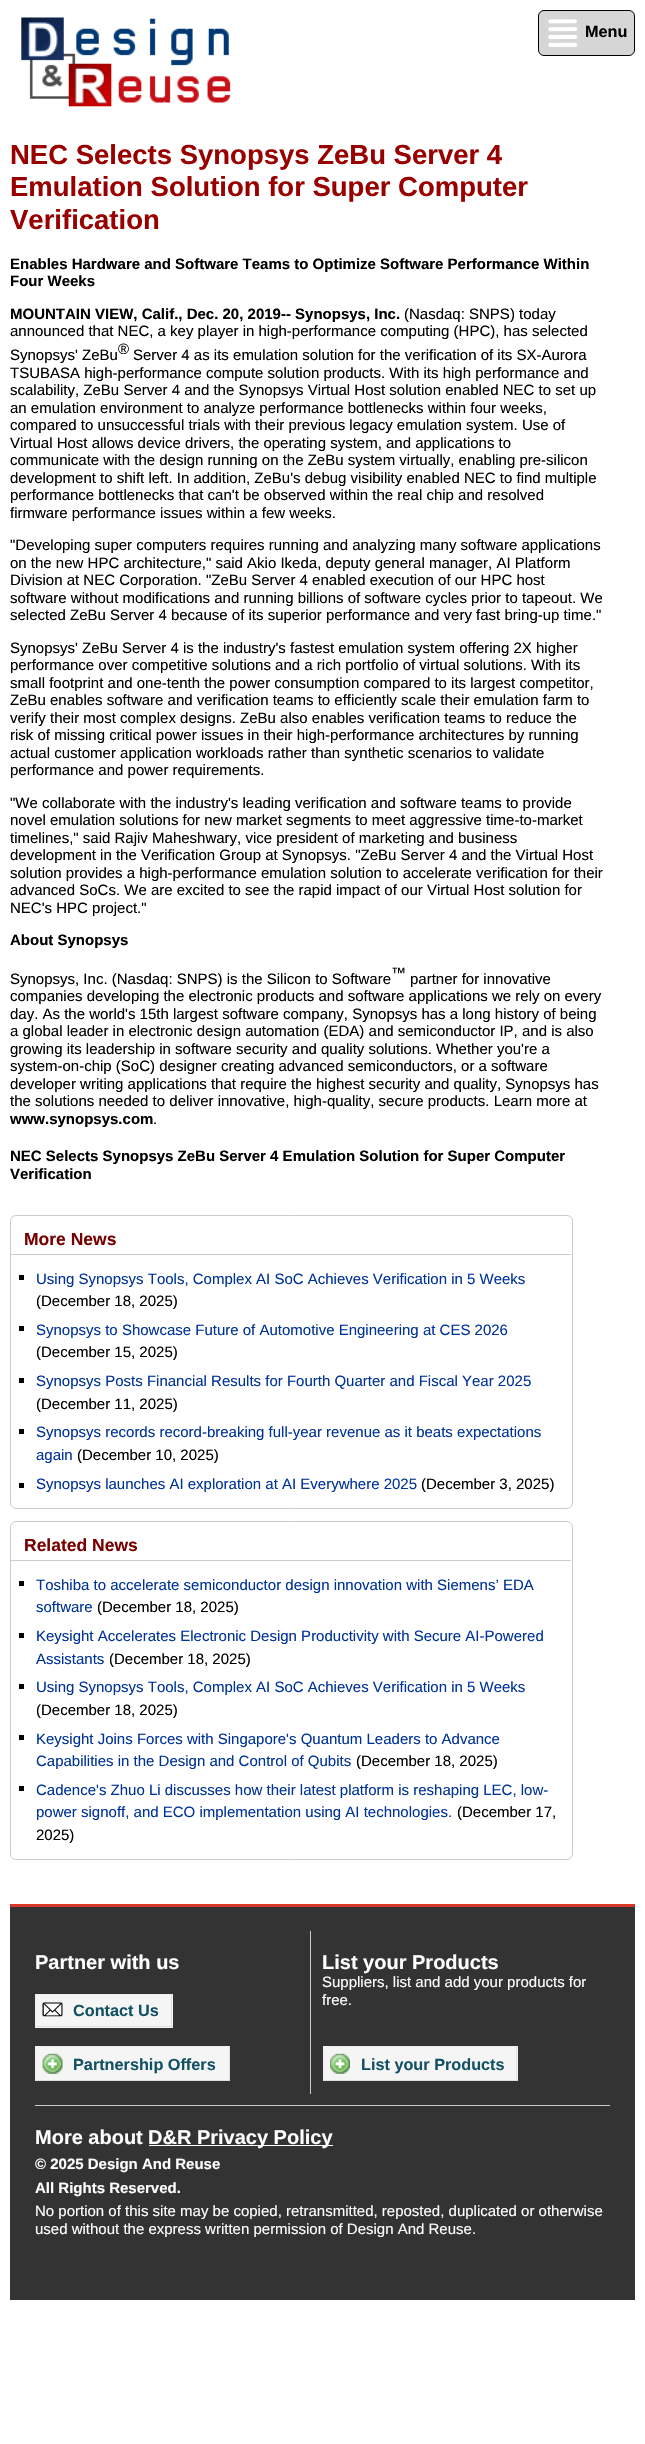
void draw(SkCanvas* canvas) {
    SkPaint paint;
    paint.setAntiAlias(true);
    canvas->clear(0xFFFFFFFF);
    canvas->drawImageRect(SkImages::DeferredFromEncodedData(SkData::MakeFromFileName("img1.png")), SkRect::MakeXYWH(21, 17, 210, 90), SkSamplingOptions());
    paint.setColor(0xFFD6D6D6);
    canvas->drawRoundRect(SkRect::MakeXYWH(538.5f, 10.5f, 96, 45), 5.5f, 5.5f, paint);
    paint.setStyle(SkPaint::kStroke_Style);
    paint.setStrokeWidth(1);
    paint.setColor(0xFF000000);
    canvas->drawRoundRect(SkRect::MakeXYWH(538.5f, 10.5f, 96, 45), 5.5f, 5.5f, paint);
    canvas->drawImageRect(SkImages::DeferredFromEncodedData(SkData::MakeFromFileName("img2.png")), SkRect::MakeXYWH(548, 19, 30, 28), SkSamplingOptions());
    SkFont font1(fontMgr->matchFamilyStyle("Liberation Sans", SkFontStyle::Bold()), 16.25f);
    font1.setSubpixel(true);
    paint.setStyle(SkPaint::kFill_Style);
    canvas->drawString("Menu", 585, 37, font1, paint);
    SkFont font2(fontMgr->matchFamilyStyle("Liberation Sans", SkFontStyle::Bold()), 27.5f);
    font2.setSubpixel(true);
    paint.setColor(0xFF990000);
    canvas->drawString("NEC Selects Synopsys ZeBu Server 4", 10, 164, font2, paint);
    canvas->drawString("Emulation Solution for Super Computer", 10, 196, font2, paint);
    canvas->drawString("Verification", 10, 229, font2, paint);
    SkFont font3(fontMgr->matchFamilyStyle("Liberation Sans", SkFontStyle::Bold()), 15);
    font3.setSubpixel(true);
    paint.setColor(0xFF000000);
    canvas->drawString("Enables Hardware and Software Teams to Optimize Software Performance Within", 10, 269, font3, paint);
    canvas->drawString("Four Weeks", 10, 286, font3, paint);
    canvas->drawString("MOUNTAIN VIEW, Calif., Dec. 20, 2019-- Synopsys, Inc.", 10, 319, font3, paint);
    SkFont font4(fontMgr->matchFamilyStyle("Liberation Sans", SkFontStyle::Normal()), 15);
    font4.setSubpixel(true);
    canvas->drawString("(Nasdaq: SNPS) today", 404, 319, font4, paint);
    canvas->drawString("announced that NEC, a key player in high-performance computing (HPC), has selected", 10, 336, font4, paint);
    canvas->drawString("Synopsys' ZeBu", 10, 360, font4, paint);
    canvas->drawString("®", 118, 354, font4, paint);
    canvas->drawString("Server 4 as its emulation solution for the verification of its SX-Aurora", 133, 360, font4, paint);
    canvas->drawString("TSUBASA high-performance compute solution products. With its high performance and", 10, 378, font4, paint);
    canvas->drawString("scalability, ZeBu Server 4 and the Synopsys Virtual Host solution enabled NEC to set up", 10, 395, font4, paint);
    canvas->drawString("an emulation environment to analyze performance bottlenecks within four weeks,", 10, 413, font4, paint);
    canvas->drawString("compared to unsuccessful trials with their previous legacy emulation system. Use of", 10, 430, font4, paint);
    canvas->drawString("Virtual Host allows device drivers, the operating system, and applications to", 10, 448, font4, paint);
    canvas->drawString("communicate with the design running on the ZeBu system virtually, enabling pre-silicon", 10, 465, font4, paint);
    canvas->drawString("development to shift left. In addition, ZeBu's debug visibility enabled NEC to find multiple", 10, 483, font4, paint);
    canvas->drawString("performance bottlenecks that can't be observed within the real chip and resolved", 10, 500, font4, paint);
    canvas->drawString("firmware performance issues within a few weeks.", 10, 518, font4, paint);
    canvas->drawString("\"Developing super computers requires running and analyzing many software applications", 10, 550, font4, paint);
    canvas->drawString("on the new HPC architecture,\" said Akio Ikeda, deputy general manager, AI Platform", 10, 568, font4, paint);
    canvas->drawString("Division at NEC Corporation. \"ZeBu Server 4 enabled execution of our HPC host", 10, 585, font4, paint);
    canvas->drawString("software without modifications and running billions of software cycles prior to tapeout. We", 10, 603, font4, paint);
    canvas->drawString("selected ZeBu Server 4 because of its superior performance and very fast bring-up time.\"", 10, 620, font4, paint);
    canvas->drawString("Synopsys' ZeBu Server 4 is the industry's fastest emulation system offering 2X higher", 10, 653, font4, paint);
    canvas->drawString("performance over competitive solutions and a rich portfolio of virtual solutions. With its", 10, 670, font4, paint);
    canvas->drawString("small footprint and one-tenth the power consumption compared to its largest competitor,", 10, 688, font4, paint);
    canvas->drawString("ZeBu enables software and verification teams to efficiently scale their emulation farm to", 10, 705, font4, paint);
    canvas->drawString("verify their most complex designs. ZeBu also enables verification teams to reduce the", 10, 723, font4, paint);
    canvas->drawString("risk of missing critical power issues in their high-performance architectures by running", 10, 740, font4, paint);
    canvas->drawString("actual customer application workloads rather than synthetic scenarios to validate", 10, 758, font4, paint);
    canvas->drawString("performance and power requirements.", 10, 775, font4, paint);
    canvas->drawString("\"We collaborate with the industry's leading verification and software teams to provide", 10, 808, font4, paint);
    canvas->drawString("novel emulation solutions for new market segments to meet aggressive time-to-market", 10, 825, font4, paint);
    canvas->drawString("timelines,\" said Rajiv Maheshwary, vice president of marketing and business", 10, 843, font4, paint);
    canvas->drawString("development in the Verification Group at Synopsys. \"ZeBu Server 4 and the Virtual Host", 10, 860, font4, paint);
    canvas->drawString("solution provides a high-performance emulation solution to accelerate verification for their", 10, 878, font4, paint);
    canvas->drawString("advanced SoCs. We are excited to see the rapid impact of our Virtual Host solution for", 10, 895, font4, paint);
    canvas->drawString("NEC's HPC project.\"", 10, 913, font4, paint);
    canvas->drawString("About Synopsys", 10, 945, font3, paint);
    canvas->drawString("™", 391, 978, font4, paint);
    canvas->drawString("Synopsys, Inc. (Nasdaq: SNPS) is the Silicon to Software", 10, 984, font4, paint);
    canvas->drawString("partner for innovative", 410, 984, font4, paint);
    canvas->drawString("companies developing the electronic products and software applications we rely on every", 10, 1001, font4, paint);
    canvas->drawString("day. As the world's 15th largest software company, Synopsys has a long history of being", 10, 1019, font4, paint);
    canvas->drawString("a global leader in electronic design automation (EDA) and semiconductor IP, and is also", 10, 1036, font4, paint);
    canvas->drawString("growing its leadership in software security and quality solutions. Whether you're a", 10, 1054, font4, paint);
    canvas->drawString("system-on-chip (SoC) designer creating advanced semiconductors, or a software", 10, 1071, font4, paint);
    canvas->drawString("developer writing applications that require the highest security and quality, Synopsys has", 10, 1089, font4, paint);
    canvas->drawString("the solutions needed to deliver innovative, high-quality, secure products. Learn more at", 10, 1106, font4, paint);
    canvas->drawString("www.synopsys.com", 10, 1124, font3, paint);
    canvas->drawString(".", 153, 1124, font4, paint);
    canvas->drawString("NEC Selects Synopsys ZeBu Server 4 Emulation Solution for Super Computer", 10, 1161, font3, paint);
    canvas->drawString("Verification", 10, 1179, font3, paint);
    paint.setStyle(SkPaint::kStroke_Style);
    paint.setColor(0xFFCCCCCC);
    canvas->drawRoundRect(SkRect::MakeXYWH(10.5f, 1215.5f, 562, 293), 5.5f, 5.5f, paint);
    paint.setStyle(SkPaint::kFill_Style);
    canvas->drawRect(SkRect::MakeXYWH(11, 1254, 560, 1), paint);
    SkFont font5(fontMgr->matchFamilyStyle("Liberation Sans", SkFontStyle::Bold()), 17.5f);
    font5.setSubpixel(true);
    paint.setColor(0xFF770000);
    canvas->drawString("More News", 24, 1245, font5, paint);
    paint.setColor(0xFF000000);
    canvas->drawRect(SkRect::MakeXYWH(19, 1275, 5, 5), paint);
    paint.setColor(0xFF003399);
    canvas->drawString("Using Synopsys Tools, Complex AI SoC Achieves Verification in 5 Weeks", 36, 1284, font4, paint);
    paint.setColor(0xFF000000);
    canvas->drawString("(December 18, 2025)", 36, 1306, font4, paint);
    canvas->drawRect(SkRect::MakeXYWH(19, 1326, 5, 5), paint);
    paint.setColor(0xFF003399);
    canvas->drawString("Synopsys to Showcase Future of Automotive Engineering at CES 2026", 36, 1335, font4, paint);
    paint.setColor(0xFF000000);
    canvas->drawString("(December 15, 2025)", 36, 1357, font4, paint);
    canvas->drawRect(SkRect::MakeXYWH(19, 1378, 5, 5), paint);
    paint.setColor(0xFF003399);
    canvas->drawString("Synopsys Posts Financial Results for Fourth Quarter and Fiscal Year 2025", 36, 1386, font4, paint);
    paint.setColor(0xFF000000);
    canvas->drawString("(December 11, 2025)", 36, 1409, font4, paint);
    canvas->drawRect(SkRect::MakeXYWH(19, 1429, 5, 5), paint);
    paint.setColor(0xFF003399);
    canvas->drawString("Synopsys records record-breaking full-year revenue as it beats expectations", 36, 1437, font4, paint);
    canvas->drawString("again", 36, 1460, font4, paint);
    paint.setColor(0xFF000000);
    canvas->drawString("(December 10, 2025)", 77, 1460, font4, paint);
    canvas->drawRect(SkRect::MakeXYWH(19, 1483, 5, 5), paint);
    paint.setColor(0xFF003399);
    canvas->drawString("Synopsys launches AI exploration at AI Everywhere 2025", 36, 1489, font4, paint);
    paint.setColor(0xFF000000);
    canvas->drawString("(December 3, 2025)", 421, 1489, font4, paint);
    paint.setStyle(SkPaint::kStroke_Style);
    paint.setColor(0xFFCCCCCC);
    canvas->drawRoundRect(SkRect::MakeXYWH(10.5f, 1521.5f, 562, 338), 5.5f, 5.5f, paint);
    paint.setStyle(SkPaint::kFill_Style);
    canvas->drawRect(SkRect::MakeXYWH(11, 1560, 560, 1), paint);
    paint.setColor(0xFF770000);
    canvas->drawString("Related News", 24, 1551, font5, paint);
    paint.setColor(0xFF000000);
    canvas->drawRect(SkRect::MakeXYWH(19, 1581, 5, 5), paint);
    paint.setColor(0xFF003399);
    canvas->drawString("Toshiba to accelerate semiconductor design innovation with Siemens’ EDA", 36, 1590, font4, paint);
    canvas->drawString("software", 36, 1612, font4, paint);
    paint.setColor(0xFF000000);
    canvas->drawString("(December 18, 2025)", 97, 1612, font4, paint);
    canvas->drawRect(SkRect::MakeXYWH(19, 1633, 5, 5), paint);
    paint.setColor(0xFF003399);
    canvas->drawString("Keysight Accelerates Electronic Design Productivity with Secure AI-Powered", 36, 1641, font4, paint);
    canvas->drawString("Assistants", 36, 1664, font4, paint);
    paint.setColor(0xFF000000);
    canvas->drawString("(December 18, 2025)", 109, 1664, font4, paint);
    canvas->drawRect(SkRect::MakeXYWH(19, 1684, 5, 5), paint);
    paint.setColor(0xFF003399);
    canvas->drawString("Using Synopsys Tools, Complex AI SoC Achieves Verification in 5 Weeks", 36, 1692, font4, paint);
    paint.setColor(0xFF000000);
    canvas->drawString("(December 18, 2025)", 36, 1715, font4, paint);
    canvas->drawRect(SkRect::MakeXYWH(19, 1735, 5, 5), paint);
    paint.setColor(0xFF003399);
    canvas->drawString("Keysight Joins Forces with Singapore's Quantum Leaders to Advance", 36, 1744, font4, paint);
    canvas->drawString("Capabilities in the Design and Control of Qubits", 36, 1766, font4, paint);
    paint.setColor(0xFF000000);
    canvas->drawString("(December 18, 2025)", 356, 1766, font4, paint);
    canvas->drawRect(SkRect::MakeXYWH(19, 1786, 5, 5), paint);
    paint.setColor(0xFF003399);
    canvas->drawString("Cadence's Zhuo Li discusses how their latest platform is reshaping LEC, low-", 36, 1795, font4, paint);
    canvas->drawString("power signoff, and ECO implementation using AI technologies.", 36, 1817, font4, paint);
    paint.setColor(0xFF000000);
    canvas->drawString("(December 17,", 457, 1817, font4, paint);
    canvas->drawString("2025)", 36, 1840, font4, paint);
    paint.setColor(0xFF333333);
    canvas->drawRect(SkRect::MakeXYWH(10, 1907, 625, 393), paint);
    paint.setColor(0xFFD7372A);
    canvas->drawRect(SkRect::MakeXYWH(10, 1904, 625, 3), paint);
    paint.setColor(0xFFCCCCCC);
    canvas->drawRect(SkRect::MakeXYWH(310, 1931, 1, 163), paint);
    SkFont font6(fontMgr->matchFamilyStyle("Liberation Sans", SkFontStyle::Bold()), 20);
    font6.setSubpixel(true);
    paint.setColor(0xFFFFFFFF);
    canvas->drawString("Partner with us", 35, 1969, font6, paint);
    paint.setColor(0xFFF5F5F5);
    canvas->drawRect(SkRect::MakeXYWH(36, 1995, 137, 33), paint);
    paint.setColor(0xFFEEEEEE);
    canvas->drawRect(SkRect::MakeXYWH(35, 1994, 138, 1), paint);
    paint.setColor(0xFFDEDEDE);
    canvas->drawRect(SkRect::MakeXYWH(171, 1994, 1, 34), paint);
    canvas->drawRect(SkRect::MakeXYWH(35, 2026, 138, 1), paint);
    paint.setColor(0xFFEEEEEE);
    canvas->drawRect(SkRect::MakeXYWH(35, 1994, 1, 34), paint);
    canvas->drawImageRect(SkImages::DeferredFromEncodedData(SkData::MakeFromFileName("img3.png")), SkRect::MakeXYWH(42, 2002, 21, 15), SkSamplingOptions());
    paint.setColor(0xFF125163);
    canvas->drawString("Contact Us", 73, 2016, font1, paint);
    paint.setColor(0xFFF5F5F5);
    canvas->drawRect(SkRect::MakeXYWH(36, 2047, 193, 33), paint);
    paint.setColor(0xFFEEEEEE);
    canvas->drawRect(SkRect::MakeXYWH(35, 2046, 195, 1), paint);
    paint.setColor(0xFFDEDEDE);
    canvas->drawRect(SkRect::MakeXYWH(229, 2046, 1, 35), paint);
    canvas->drawRect(SkRect::MakeXYWH(35, 2080, 195, 1), paint);
    paint.setColor(0xFFEEEEEE);
    canvas->drawRect(SkRect::MakeXYWH(35, 2046, 1, 35), paint);
    canvas->drawImageRect(SkImages::DeferredFromEncodedData(SkData::MakeFromFileName("img4.png")), SkRect::MakeXYWH(42, 2053, 21, 21), SkSamplingOptions());
    paint.setColor(0xFF125163);
    canvas->drawString("Partnership Offers", 73, 2070, font1, paint);
    paint.setColor(0xFFFFFFFF);
    canvas->drawString("List your Products", 322, 1969, font6, paint);
    canvas->drawString("Suppliers, list and add your products for", 322, 1987, font4, paint);
    canvas->drawString("free.", 322, 2005, font4, paint);
    paint.setColor(0xFFF5F5F5);
    canvas->drawRect(SkRect::MakeXYWH(324, 2047, 194, 33), paint);
    paint.setColor(0xFFEEEEEE);
    canvas->drawRect(SkRect::MakeXYWH(323, 2046, 195, 1), paint);
    paint.setColor(0xFFDEDEDE);
    canvas->drawRect(SkRect::MakeXYWH(516, 2046, 1, 35), paint);
    canvas->drawRect(SkRect::MakeXYWH(323, 2080, 195, 1), paint);
    paint.setColor(0xFFEEEEEE);
    canvas->drawRect(SkRect::MakeXYWH(323, 2046, 1, 35), paint);
    canvas->drawImageRect(SkImages::DeferredFromEncodedData(SkData::MakeFromFileName("img5.png")), SkRect::MakeXYWH(330, 2053, 20, 21), SkSamplingOptions());
    paint.setColor(0xFF125163);
    canvas->drawString("List your Products", 361, 2070, font1, paint);
    paint.setColor(0xFFCCCCCC);
    canvas->drawRect(SkRect::MakeXYWH(35, 2105, 575, 1), paint);
    paint.setColor(0xFFFFFFFF);
    canvas->drawString("More about", 35, 2144, font6, paint);
    canvas->drawRect(SkRect::MakeXYWH(149, 2145, 184, 1), paint);
    canvas->drawString("D&R Privacy Policy", 148, 2144, font6, paint);
    canvas->drawString("© 2025 Design And Reuse", 35, 2169, font3, paint);
    canvas->drawString("All Rights Reserved.", 35, 2193, font3, paint);
    canvas->drawString("No portion of this site may be copied, retransmitted, reposted, duplicated or otherwise", 35, 2216, font4, paint);
    canvas->drawString("used without the express written permission of Design And Reuse.", 35, 2234, font4, paint);
}
